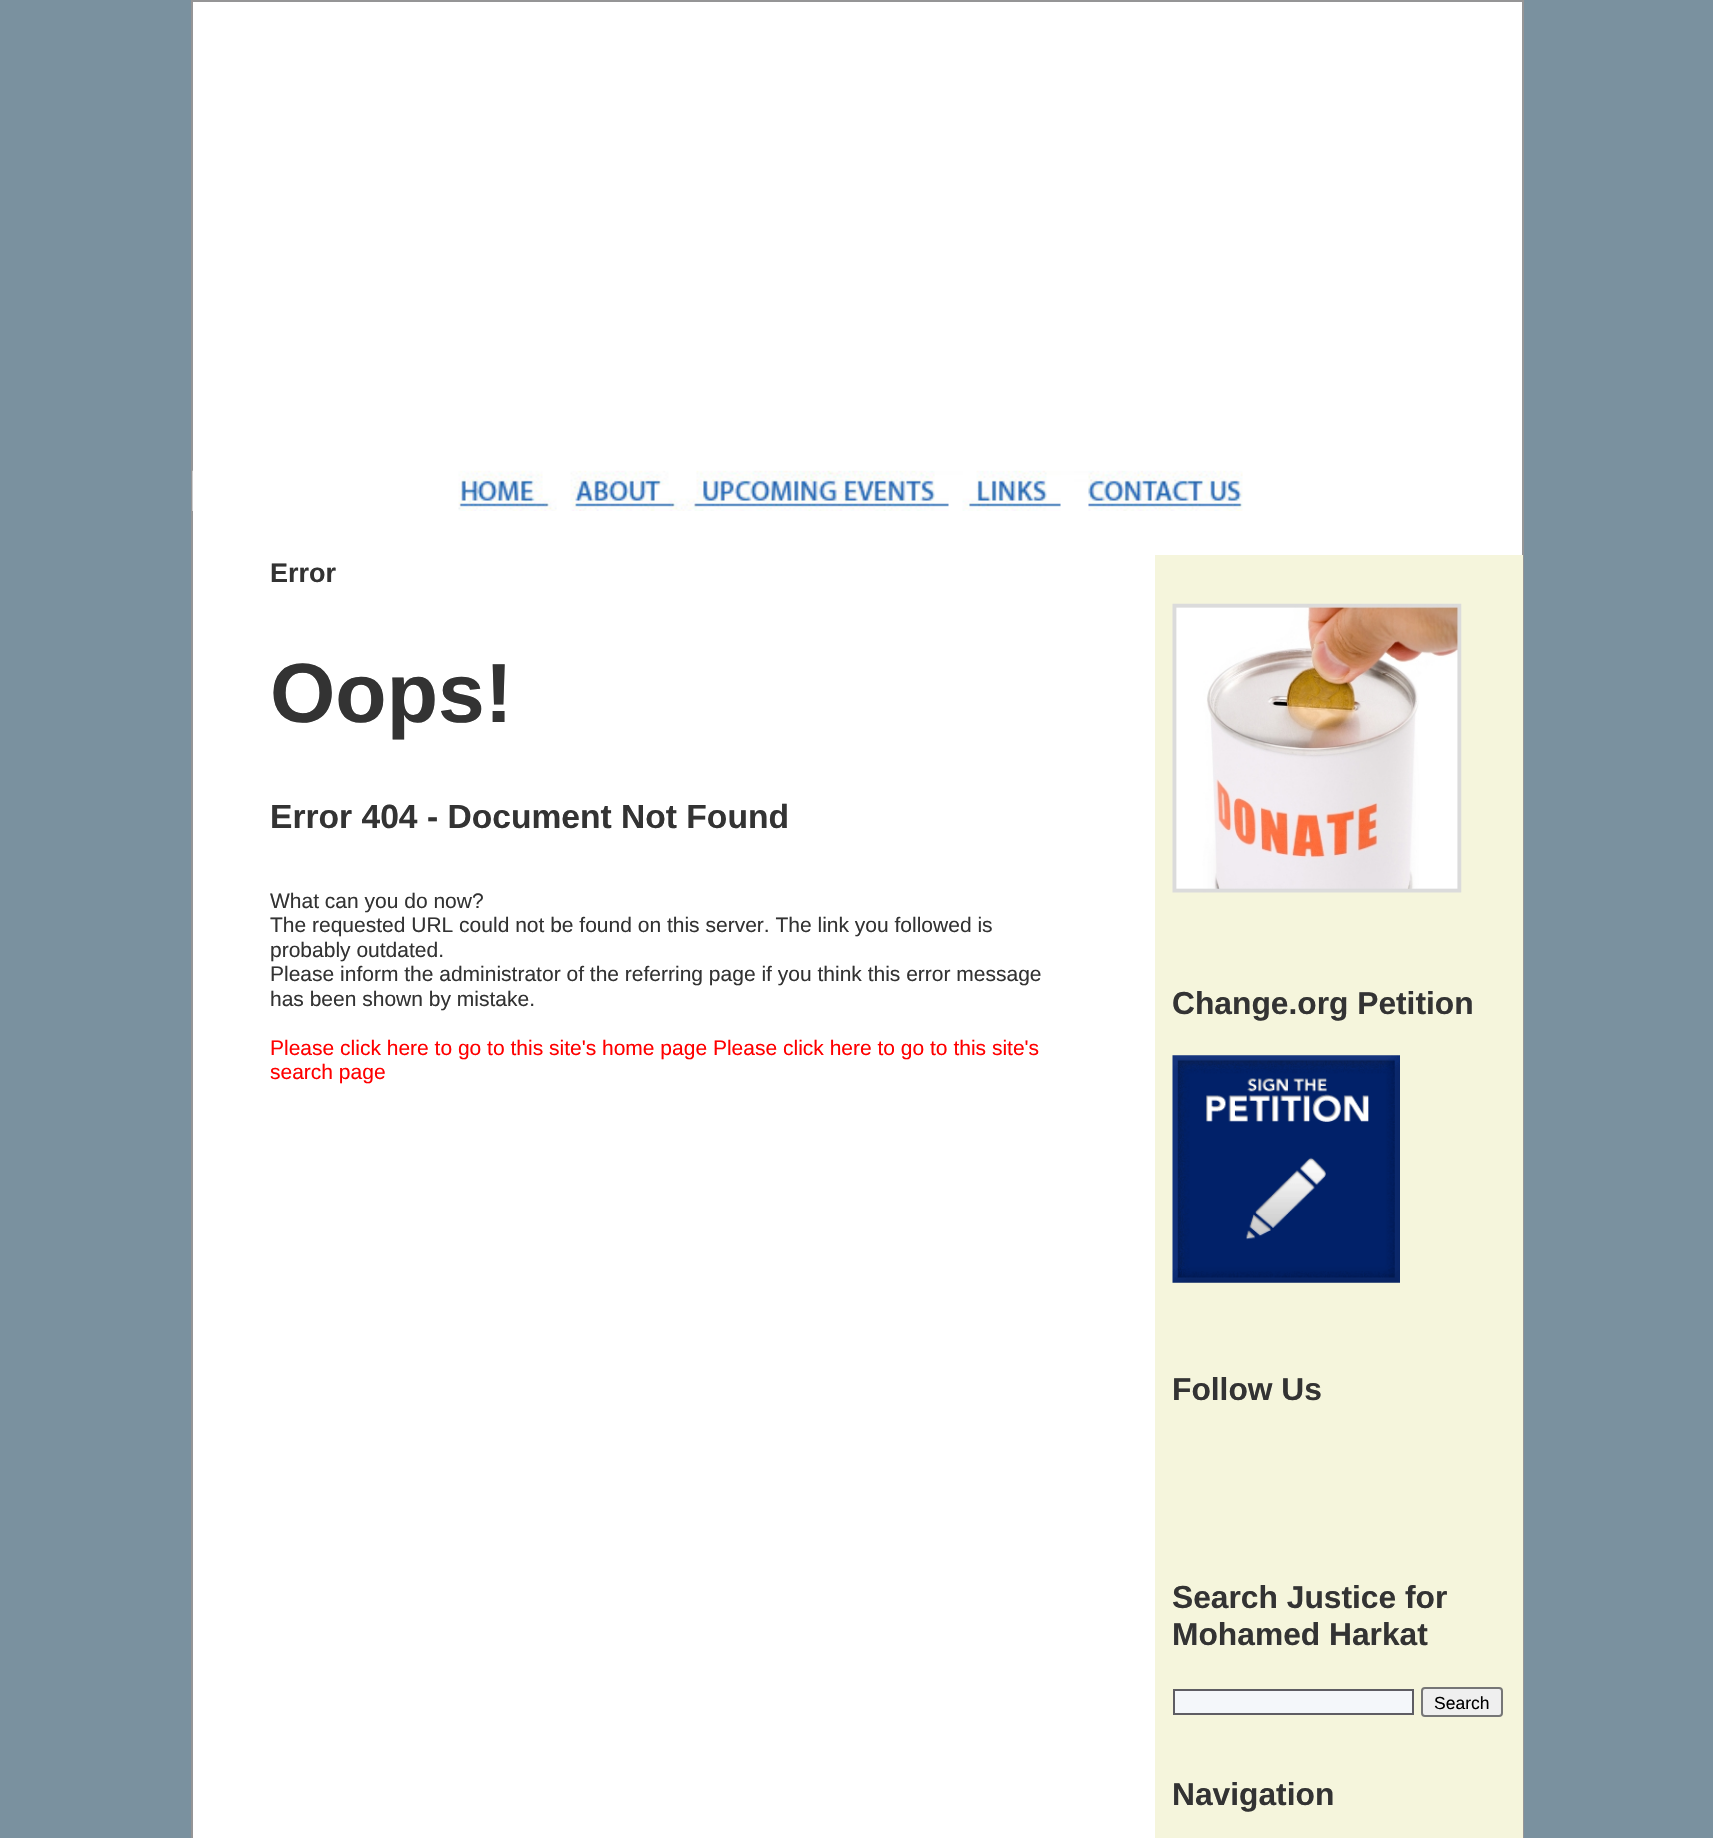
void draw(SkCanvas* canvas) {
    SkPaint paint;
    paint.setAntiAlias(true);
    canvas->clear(0xFF7A919F);
    paint.setColor(0xFFFFFFFF);
    canvas->drawRect(SkRect::MakeXYWH(192, 1, 1331, 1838), paint);
    paint.setStyle(SkPaint::kStroke_Style);
    paint.setStrokeWidth(2);
    paint.setColor(0xFF959596);
    canvas->drawRect(SkRect::MakeXYWH(192, 1, 1331, 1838), paint);
    canvas->drawImageRect(SkImages::DeferredFromEncodedData(SkData::MakeFromFileName("img1.png")), SkRect::MakeXYWH(192, 470, 1051, 41), SkSamplingOptions());
    SkFont font1(fontMgr->matchFamilyStyle("Liberation Sans", SkFontStyle::Bold()), 27);
    font1.setSubpixel(true);
    paint.setStyle(SkPaint::kFill_Style);
    paint.setColor(0xFF333333);
    canvas->drawString("Error", 270, 582, font1, paint);
    SkFont font2(fontMgr->matchFamilyStyle("Liberation Sans", SkFontStyle::Bold()), 84);
    font2.setSubpixel(true);
    canvas->drawString("Oops!", 270, 722, font2, paint);
    SkFont font3(fontMgr->matchFamilyStyle("Liberation Sans", SkFontStyle::Bold()), 33.6f);
    font3.setSubpixel(true);
    canvas->drawString("Error 404 - Document Not Found", 270, 828, font3, paint);
    SkFont font4(fontMgr->matchFamilyStyle("Liberation Sans", SkFontStyle::Normal()), 21);
    font4.setSubpixel(true);
    canvas->drawString("What can you do now?", 270, 908, font4, paint);
    canvas->drawString("The requested URL could not be found on this server. The link you followed is", 270, 932, font4, paint);
    canvas->drawString("probably outdated.", 270, 957, font4, paint);
    canvas->drawString("Please inform the administrator of the referring page if you think this error message", 270, 981, font4, paint);
    canvas->drawString("has been shown by mistake.", 270, 1006, font4, paint);
    paint.setColor(0xFFFF0000);
    canvas->drawString("Please click here to go to this site's home page Please click here to go to this site's", 270, 1055, font4, paint);
    canvas->drawString("search page", 270, 1079, font4, paint);
    paint.setColor(0xFFF5F5DC);
    canvas->drawRect(SkRect::MakeXYWH(1155, 555, 368, 1283), paint);
    canvas->drawImageRect(SkImages::DeferredFromEncodedData(SkData::MakeFromFileName("img2.png")), SkRect::MakeXYWH(1172, 603, 290, 290), SkSamplingOptions());
    SkFont font5(fontMgr->matchFamilyStyle("Liberation Sans", SkFontStyle::Bold()), 31.75f);
    font5.setSubpixel(true);
    paint.setColor(0xFF333333);
    canvas->drawString("Change.org Petition", 1172, 1014, font5, paint);
    canvas->drawImageRect(SkImages::DeferredFromEncodedData(SkData::MakeFromFileName("img3.png")), SkRect::MakeXYWH(1172, 1055, 228, 228), SkSamplingOptions());
    canvas->drawString("Follow Us", 1172, 1400, font5, paint);
    canvas->drawString("Search Justice for", 1172, 1608, font5, paint);
    canvas->drawString("Mohamed Harkat", 1172, 1645, font5, paint);
    paint.setColor(0xFFF4F7FA);
    canvas->drawRect(SkRect::MakeXYWH(1174, 1690, 239, 24), paint);
    paint.setStyle(SkPaint::kStroke_Style);
    paint.setColor(0xFF5E5D63);
    canvas->drawRect(SkRect::MakeXYWH(1174, 1690, 239, 24), paint);
    paint.setStyle(SkPaint::kFill_Style);
    paint.setColor(0xFFEFEFEF);
    canvas->drawRoundRect(SkRect::MakeXYWH(1422, 1688, 80, 28), 3, 3, paint);
    paint.setStyle(SkPaint::kStroke_Style);
    paint.setColor(0xFF767676);
    canvas->drawRoundRect(SkRect::MakeXYWH(1422, 1688, 80, 28), 3, 3, paint);
    SkFont font6(fontMgr->matchFamilyStyle("Liberation Sans", SkFontStyle::Normal()), 17.5f);
    font6.setSubpixel(true);
    paint.setStyle(SkPaint::kFill_Style);
    paint.setColor(0xFF000000);
    canvas->drawString("Search", 1434, 1709, font6, paint);
    paint.setColor(0xFF333333);
    canvas->drawString("Navigation", 1172, 1805, font5, paint);
}
